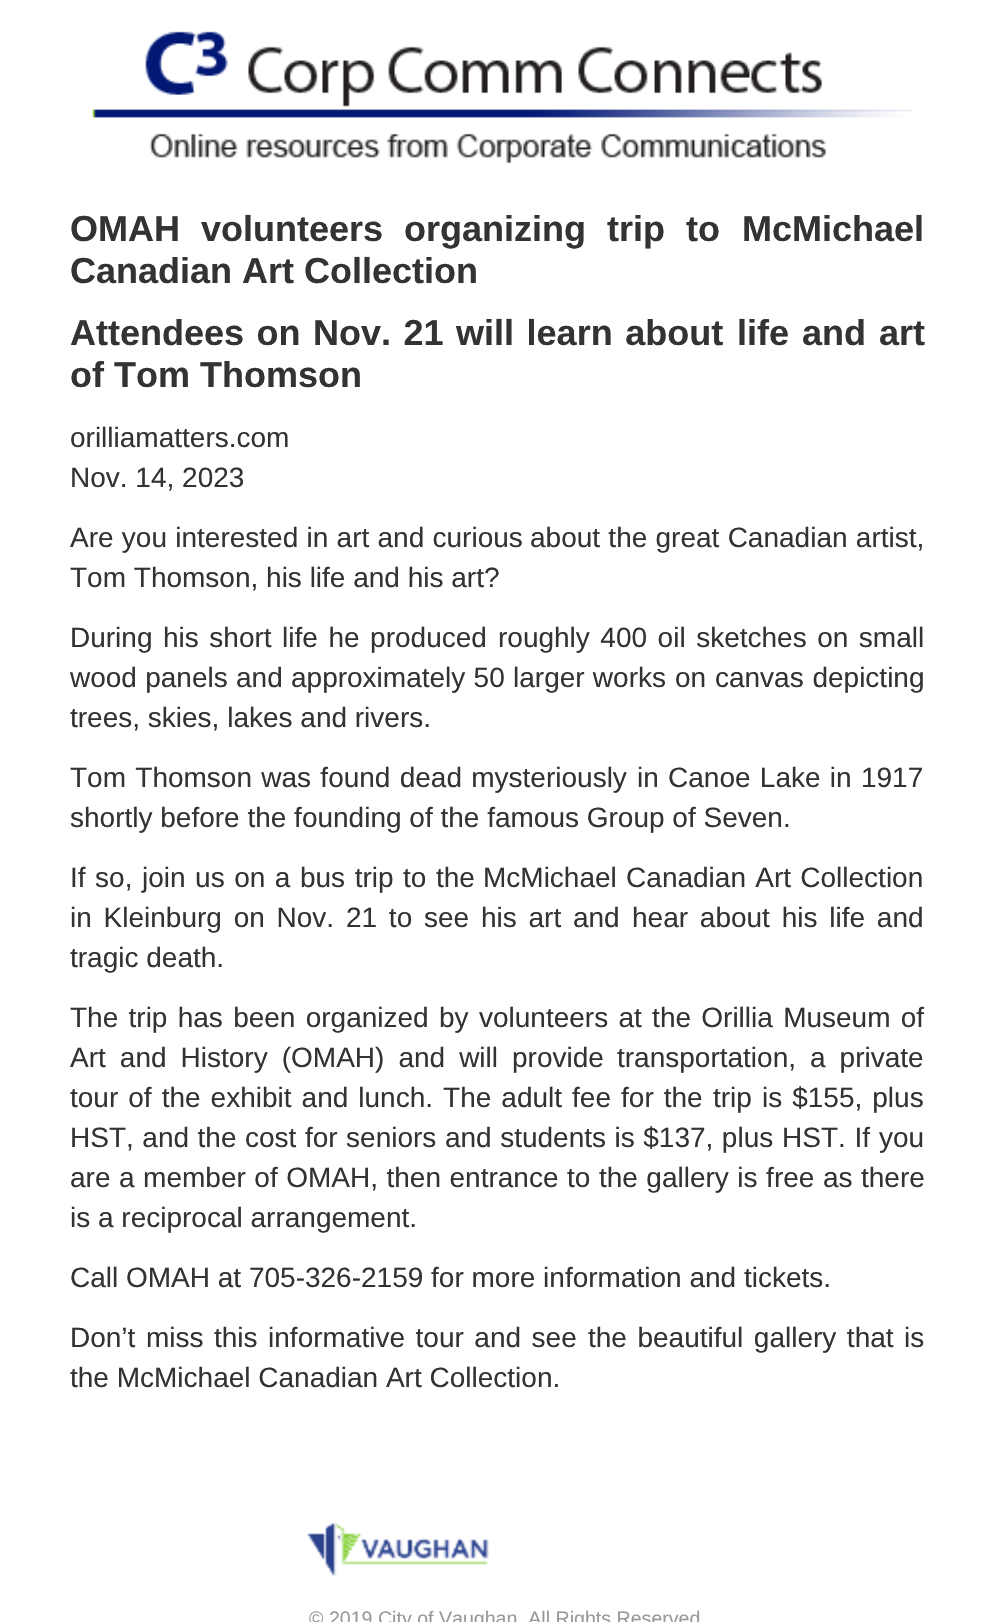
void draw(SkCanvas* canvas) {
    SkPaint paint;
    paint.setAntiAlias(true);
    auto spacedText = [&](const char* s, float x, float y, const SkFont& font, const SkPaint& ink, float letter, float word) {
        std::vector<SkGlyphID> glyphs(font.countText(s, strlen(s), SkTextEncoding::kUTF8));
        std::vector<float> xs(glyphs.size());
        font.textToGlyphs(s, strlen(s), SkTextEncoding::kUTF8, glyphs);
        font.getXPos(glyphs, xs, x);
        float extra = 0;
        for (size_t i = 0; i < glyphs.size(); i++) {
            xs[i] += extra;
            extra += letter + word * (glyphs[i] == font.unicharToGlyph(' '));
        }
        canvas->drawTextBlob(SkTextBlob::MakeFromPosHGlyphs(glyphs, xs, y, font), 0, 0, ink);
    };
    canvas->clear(0xFFFFFFFF);
    canvas->drawImageRect(SkImages::DeferredFromEncodedData(SkData::MakeFromFileName("img1.png")), SkRect::MakeXYWH(92, 31, 821, 133), SkSamplingOptions());
    SkFont font1(fontMgr->matchFamilyStyle("Liberation Sans", SkFontStyle::Bold()), 36);
    font1.setSubpixel(true);
    paint.setColor(0xFF333333);
    spacedText("OMAH volunteers organizing trip to", 70, 241, font1, paint, 0, 11);
    canvas->drawString("McMichael", 742, 241, font1, paint);
    canvas->drawString("Canadian Art Collection", 70, 283, font1, paint);
    spacedText("Attendees on Nov. 21 will learn about", 70, 345, font1, paint, 0, 2.5f);
    spacedText("life and art", 737, 345, font1, paint, 0, 3);
    canvas->drawString("of Tom Thomson", 70, 387, font1, paint);
    SkFont font2(fontMgr->matchFamilyStyle("Liberation Sans", SkFontStyle::Normal()), 28);
    font2.setSubpixel(true);
    canvas->drawString("orilliamatters.com", 70, 447, font2, paint);
    canvas->drawString("Nov. 14, 2023", 70, 487, font2, paint);
    spacedText("Are you interested in art and curious", 70, 547, font2, paint, 0, 0.5f);
    spacedText("about the great Canadian artist,", 530, 547, font2, paint, 0, 0.5f);
    canvas->drawString("Tom Thomson, his life and his art?", 70, 587, font2, paint);
    spacedText("During his short life he produced", 70, 647, font2, paint, 0, 2.75f);
    spacedText("roughly 400 oil sketches on small", 498, 647, font2, paint, 0, 2.75f);
    spacedText("wood panels and approximately 50 larger works", 70, 687, font2, paint, 0, 0.5f);
    spacedText("on canvas depicting", 675, 687, font2, paint, 0, 1);
    canvas->drawString("trees, skies, lakes and rivers.", 70, 727, font2, paint);
    spacedText("Tom Thomson was found dead mysteriously", 70, 787, font2, paint, 0, 1.5f);
    spacedText("in Canoe Lake in 1917", 637, 787, font2, paint, 0, 1.5f);
    canvas->drawString("shortly before the founding of the famous Group of Seven.", 70, 827, font2, paint);
    spacedText("If so, join us on a bus trip to the", 70, 887, font2, paint, 0, 1.75f);
    spacedText("McMichael Canadian Art Collection", 483, 887, font2, paint, 0, 1.5f);
    spacedText("in Kleinburg on Nov. 21 to see his art and", 70, 927, font2, paint, 0, 4);
    spacedText("hear about his life and", 632, 927, font2, paint, 0, 4);
    canvas->drawString("tragic death.", 70, 967, font2, paint);
    spacedText("The trip has been organized by", 70, 1027, font2, paint, 0, 2.5f);
    spacedText("volunteers at the Orillia Museum of", 479, 1027, font2, paint, 0, 2.5f);
    spacedText("Art and History (OMAH) and will provide", 70, 1067, font2, paint, 0, 6.25f);
    spacedText("transportation, a private", 617, 1067, font2, paint, 0, 6.25f);
    spacedText("tour of the exhibit and lunch. The adult fee for the", 70, 1107, font2, paint, 0, 2.25f);
    spacedText("trip is $155, plus", 713, 1107, font2, paint, 0, 2.25f);
    spacedText("HST, and the cost for seniors and students is $137, plus", 70, 1147, font2, paint, 0, 0.75f);
    spacedText("HST. If you", 782, 1147, font2, paint, 0, 1);
    spacedText("are a member of OMAH, then entrance to the gallery is free as there", 70, 1187, font2, paint, 0, 0.75f);
    canvas->drawString("is a reciprocal arrangement.", 70, 1227, font2, paint);
    canvas->drawString("Call OMAH at 705-326-2159 for more information and tickets.", 70, 1287, font2, paint);
    spacedText("Don’t miss this informative tour and see", 70, 1347, font2, paint, 0, 2.75f);
    spacedText("the beautiful gallery that is", 588, 1347, font2, paint, 0, 2.75f);
    canvas->drawString("the McMichael Canadian Art Collection.", 70, 1387, font2, paint);
    canvas->drawImageRect(SkImages::DeferredFromEncodedData(SkData::MakeFromFileName("img2.png")), SkRect::MakeXYWH(307, 1522, 182, 55), SkSamplingOptions());
    SkFont font3(fontMgr->matchFamilyStyle("Liberation Sans", SkFontStyle::Normal()), 19.6f);
    font3.setSubpixel(true);
    paint.setColor(0xFF999999);
    canvas->drawString("© 2019 City of Vaughan. All Rights Reserved", 309, 1625, font3, paint);
}
